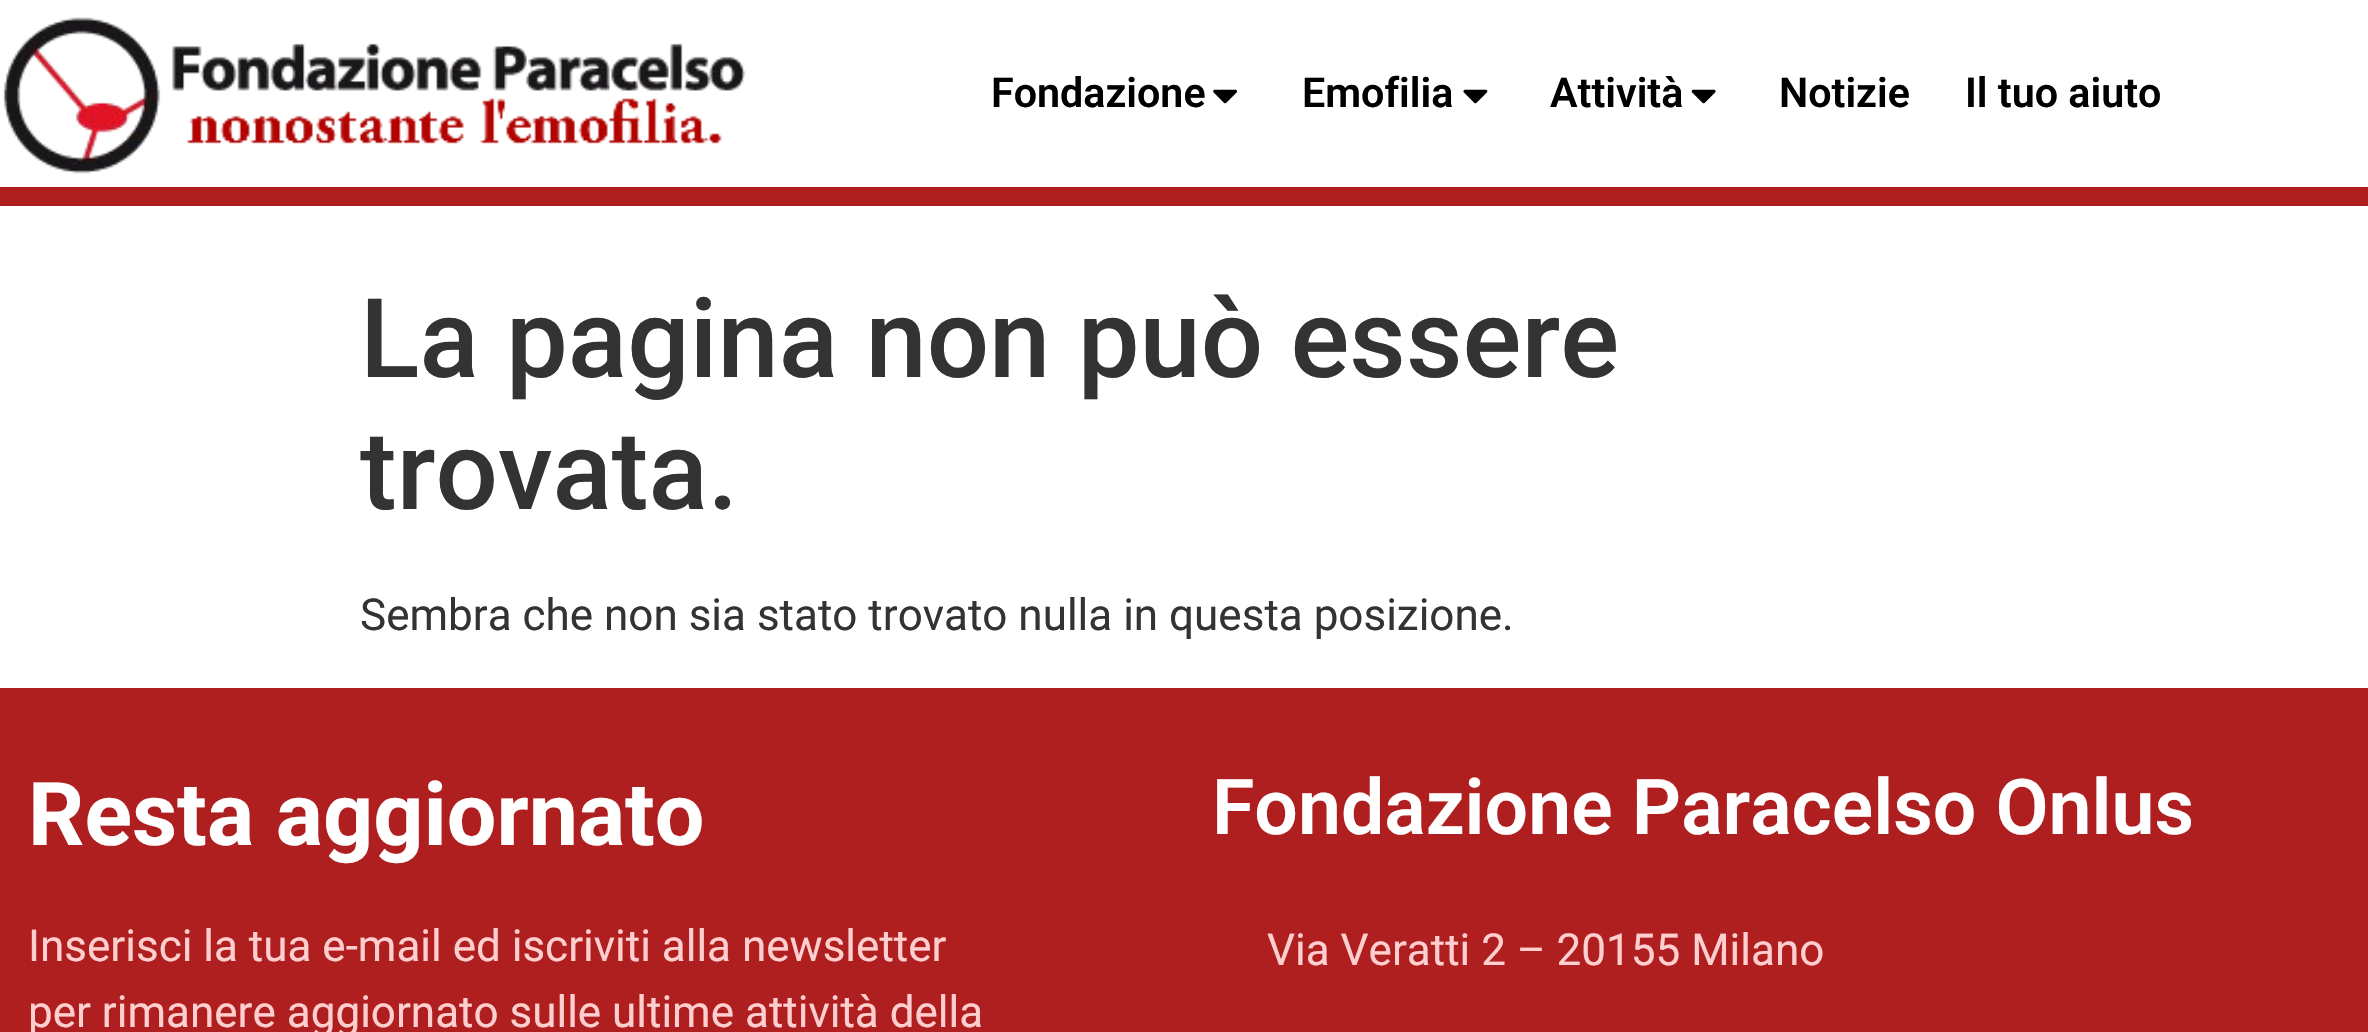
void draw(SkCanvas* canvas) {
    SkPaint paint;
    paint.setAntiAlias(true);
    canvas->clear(0xFFFFFFFF);
    canvas->drawImageRect(SkImages::DeferredFromEncodedData(SkData::MakeFromFileName("img1.png")), SkRect::MakeXYWH(3, 17, 743, 157), SkSamplingOptions());
    SkFont font1(fontMgr->matchFamilyStyle("Roboto", SkFontStyle(600, SkFontStyle::kNormal_Width, SkFontStyle::kUpright_Slant)), 41.25f);
    font1.setSubpixel(true);
    paint.setColor(0xFF000000);
    canvas->drawString("Fondazione", 991, 107, font1, paint);
    canvas->drawImageRect(SkImages::DeferredFromEncodedData(SkData::MakeFromFileName("img2.png")), SkRect::MakeXYWH(1213, 89, 25, 15), SkSamplingOptions());
    canvas->drawString("Emofilia", 1302, 107, font1, paint);
    canvas->drawImageRect(SkImages::DeferredFromEncodedData(SkData::MakeFromFileName("img3.png")), SkRect::MakeXYWH(1463, 89, 25, 15), SkSamplingOptions());
    canvas->drawString("Attività", 1550, 107, font1, paint);
    canvas->drawImageRect(SkImages::DeferredFromEncodedData(SkData::MakeFromFileName("img4.png")), SkRect::MakeXYWH(1691, 89, 25, 15), SkSamplingOptions());
    canvas->drawString("Notizie", 1779, 107, font1, paint);
    canvas->drawString("Il tuo aiuto", 1965, 107, font1, paint);
    paint.setColor(0xFFAF1F1F);
    canvas->drawRect(SkRect::MakeXYWH(0, 187, 2368, 19), paint);
    SkFont font2(fontMgr->matchFamilyStyle("Roboto", SkFontStyle(500, SkFontStyle::kNormal_Width, SkFontStyle::kUpright_Slant)), 110);
    font2.setSubpixel(true);
    paint.setColor(0xFF333333);
    canvas->drawString("La pagina non può essere", 360, 377, font2, paint);
    canvas->drawString("trovata.", 360, 509, font2, paint);
    SkFont font3(fontMgr->matchFamilyStyle("Roboto", SkFontStyle::Normal()), 44);
    font3.setSubpixel(true);
    canvas->drawString("Sembra che non sia stato trovato nulla in questa posizione.", 360, 630, font3, paint);
    paint.setColor(0xFFAF1F1F);
    canvas->drawRect(SkRect::MakeXYWH(0, 688, 2368, 344), paint);
    SkFont font4(fontMgr->matchFamilyStyle("Roboto", SkFontStyle::Bold()), 88);
    font4.setSubpixel(true);
    paint.setColor(0xFFFFFFFF);
    canvas->drawString("Resta aggiornato", 28, 845, font4, paint);
    paint.setColor(0xFFFFCFCF);
    canvas->drawString("Inserisci la tua e-mail ed iscriviti alla newsletter", 28, 961, font3, paint);
    canvas->drawString("per rimanere aggiornato sulle ultime attività della", 28, 1027, font3, paint);
    SkFont font5(fontMgr->matchFamilyStyle("Roboto", SkFontStyle(600, SkFontStyle::kNormal_Width, SkFontStyle::kUpright_Slant)), 77);
    font5.setSubpixel(true);
    paint.setColor(0xFFFFFFFF);
    canvas->drawString("Fondazione Paracelso Onlus", 1212, 834, font5, paint);
    paint.setColor(0xFFFFCFCF);
    canvas->drawString("Via Veratti 2 – 20155 Milano", 1267, 965, font3, paint);
}
